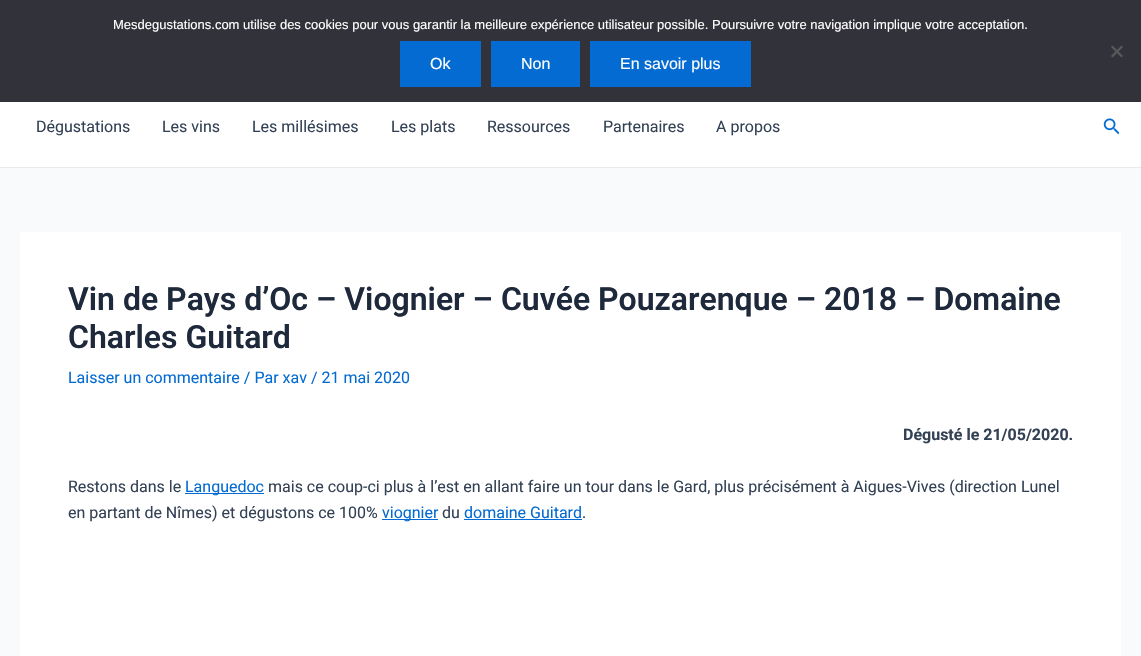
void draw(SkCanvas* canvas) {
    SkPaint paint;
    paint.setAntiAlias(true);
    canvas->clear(0xFFF9FAFB);
    paint.setColor(0xFF32323A);
    canvas->drawRect(SkRect::MakeXYWH(0, 0, 1141, 102), paint);
    SkFont font1(fontMgr->matchFamilyStyle("Liberation Sans", SkFontStyle::Normal()), 13);
    font1.setSubpixel(true);
    paint.setColor(0xFFFFFFFF);
    canvas->drawString("Mesdegustations.com utilise des cookies pour vous garantir la meilleure expérience utilisateur possible. Poursuivre votre navigation implique votre acceptation.", 113, 29, font1, paint);
    paint.setColor(0xFF59595D);
    canvas->drawPath(SkPathBuilder().moveTo(1121.5f, 45.5f).lineTo(1123, 47).lineTo(1112.5f, 57.5f).lineTo(1111, 56).close().detach(), paint);
    canvas->drawPath(SkPathBuilder().moveTo(1111, 47).lineTo(1112.5f, 45.5f).lineTo(1123, 56).lineTo(1121.5f, 57.5f).close().detach(), paint);
    paint.setColor(0xFF046BD2);
    canvas->drawRect(SkRect::MakeXYWH(400, 41, 81, 46), paint);
    SkFont font2(fontMgr->matchFamilyStyle("Liberation Sans", SkFontStyle::Normal()), 16);
    font2.setSubpixel(true);
    paint.setColor(0xFFFFFFFF);
    canvas->drawString("Ok", 430, 69, font2, paint);
    paint.setColor(0xFF046BD2);
    canvas->drawRect(SkRect::MakeXYWH(491, 41, 89, 46), paint);
    paint.setColor(0xFFFFFFFF);
    canvas->drawString("Non", 521, 69, font2, paint);
    paint.setColor(0xFF046BD2);
    canvas->drawRect(SkRect::MakeXYWH(590, 41, 161, 46), paint);
    paint.setColor(0xFFFFFFFF);
    canvas->drawString("En savoir plus", 620, 69, font2, paint);
    canvas->drawRect(SkRect::MakeXYWH(0, 102, 1141, 65), paint);
    paint.setColor(0xFFEAEAEA);
    canvas->drawRect(SkRect::MakeXYWH(0, 167, 1141, 1), paint);
    SkFont font3(fontMgr->matchFamilyStyle("Roboto", SkFontStyle::Normal()), 16);
    font3.setSubpixel(true);
    paint.setColor(0xFF334155);
    canvas->drawString("Dégustations", 36, 132, font3, paint);
    canvas->drawString("Les vins", 162, 132, font3, paint);
    canvas->drawString("Les millésimes", 252, 132, font3, paint);
    canvas->drawString("Les plats", 391, 132, font3, paint);
    canvas->drawString("Ressources", 487, 132, font3, paint);
    canvas->drawString("Partenaires", 603, 132, font3, paint);
    canvas->drawString("A propos", 716, 132, font3, paint);
    canvas->drawImageRect(SkImages::DeferredFromEncodedData(SkData::MakeFromFileName("img1.png")), SkRect::MakeXYWH(1103, 118, 16, 17), SkSamplingOptions());
    paint.setColor(0xFFFFFFFF);
    canvas->drawRect(SkRect::MakeXYWH(20, 232, 1101, 424), paint);
    SkFont font4(fontMgr->matchFamilyStyle("Roboto", SkFontStyle(600, SkFontStyle::kNormal_Width, SkFontStyle::kUpright_Slant)), 32);
    font4.setSubpixel(true);
    paint.setColor(0xFF1E293B);
    canvas->drawString("Vin de Pays d’Oc – Viognier – Cuvée Pouzarenque – 2018 – Domaine", 68, 310, font4, paint);
    canvas->drawString("Charles Guitard", 68, 348, font4, paint);
    paint.setColor(0xFF046BD2);
    canvas->drawString("Laisser un commentaire / Par xav / 21 mai 2020", 68, 383, font3, paint);
    SkFont font5(fontMgr->matchFamilyStyle("Roboto", SkFontStyle::Bold()), 16);
    font5.setSubpixel(true);
    paint.setColor(0xFF334155);
    canvas->drawString("Dégusté le 21/05/2020.", 903, 440, font5, paint);
    canvas->drawString("Restons dans le", 68, 492, font3, paint);
    paint.setColor(0xFF046BD2);
    canvas->drawRect(SkRect::MakeXYWH(185, 493, 79, 1), paint);
    canvas->drawString("Languedoc", 185, 492, font3, paint);
    paint.setColor(0xFF334155);
    canvas->drawString("mais ce coup-ci plus à l’est en allant faire un tour dans le Gard, plus précisément à Aigues-Vives (direction Lunel", 268, 492, font3, paint);
    canvas->drawString("en partant de Nîmes) et dégustons ce 100%", 68, 518, font3, paint);
    paint.setColor(0xFF046BD2);
    canvas->drawRect(SkRect::MakeXYWH(382, 519, 56, 1), paint);
    canvas->drawString("viognier", 382, 518, font3, paint);
    paint.setColor(0xFF334155);
    canvas->drawString("du", 442, 518, font3, paint);
    paint.setColor(0xFF046BD2);
    canvas->drawString("domaine Guitard", 464, 518, font3, paint);
    canvas->drawRect(SkRect::MakeXYWH(464, 519, 118, 1), paint);
    paint.setColor(0xFF334155);
    canvas->drawString(".", 582, 518, font3, paint);
}
